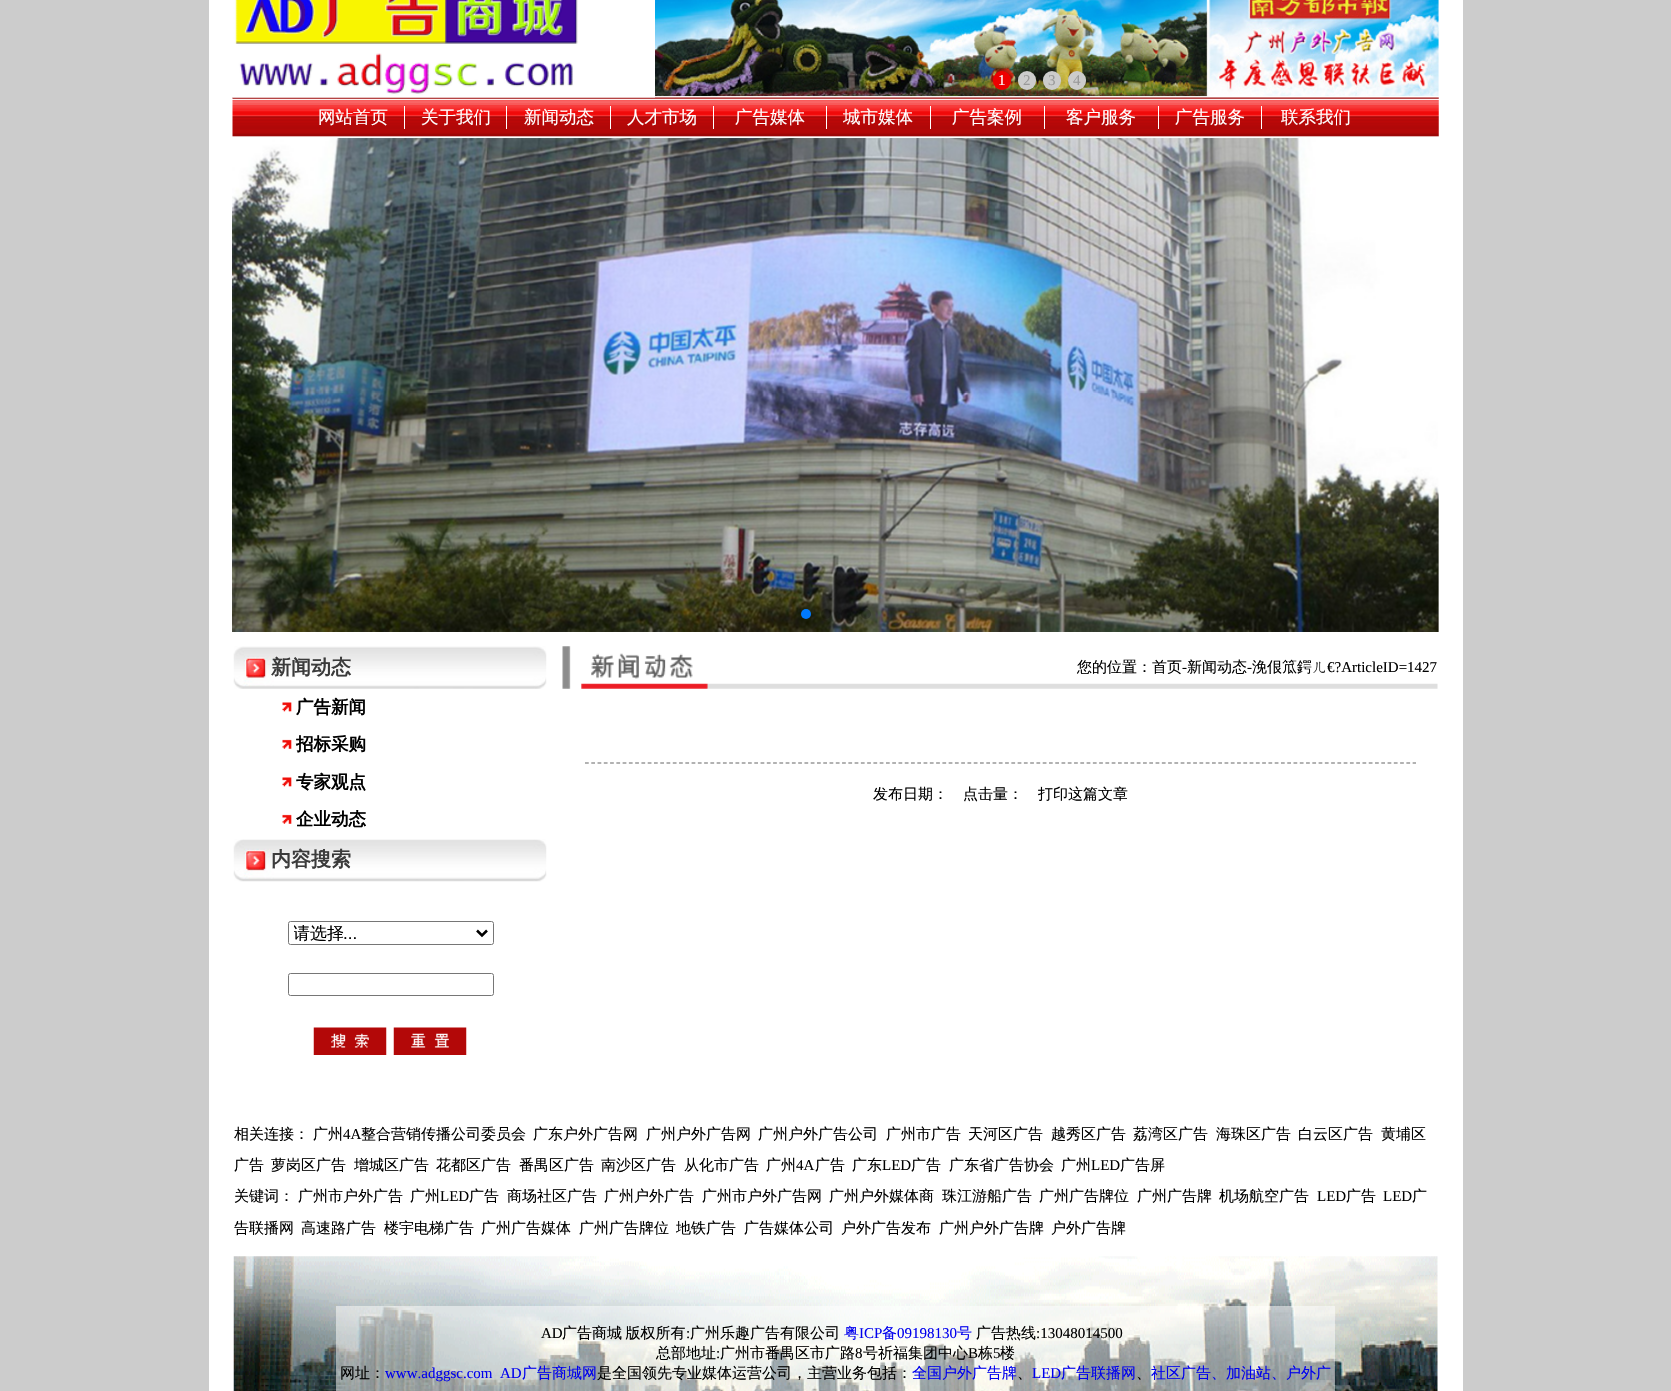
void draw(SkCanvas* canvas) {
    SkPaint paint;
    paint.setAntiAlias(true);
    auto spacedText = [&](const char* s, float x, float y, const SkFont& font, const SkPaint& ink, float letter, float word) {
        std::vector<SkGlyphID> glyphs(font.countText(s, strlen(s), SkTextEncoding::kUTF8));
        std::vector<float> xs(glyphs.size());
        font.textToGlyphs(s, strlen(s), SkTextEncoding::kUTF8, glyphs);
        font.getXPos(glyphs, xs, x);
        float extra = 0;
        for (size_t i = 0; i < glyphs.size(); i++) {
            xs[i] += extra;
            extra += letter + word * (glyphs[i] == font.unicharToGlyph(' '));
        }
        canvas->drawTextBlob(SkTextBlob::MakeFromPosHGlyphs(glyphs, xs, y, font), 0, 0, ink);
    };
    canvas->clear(0xFFCCCCCC);
    paint.setColor(0xFFFFFFFF);
    canvas->drawRect(SkRect::MakeXYWH(209, 0, 1254, 1391), paint);
    canvas->drawImageRect(SkImages::DeferredFromEncodedData(SkData::MakeFromFileName("img3.png")), SkRect::MakeXYWH(232, 97, 1207, 40), SkSamplingOptions());
    canvas->drawImageRect(SkImages::DeferredFromEncodedData(SkData::MakeFromFileName("img1.png")), SkRect::MakeXYWH(232, 0, 423, 98), SkSamplingOptions());
    canvas->drawImageRect(SkImages::DeferredFromEncodedData(SkData::MakeFromFileName("img2.png")), SkRect::MakeXYWH(655, 0, 784, 97), SkSamplingOptions());
    paint.setColor(0xFFEE0000);
    canvas->drawRoundRect(SkRect::MakeXYWH(993, 71, 18, 19), 9, 9, paint);
    SkFont font1(fontMgr->matchFamilyStyle("Liberation Serif", SkFontStyle::Normal()), 15);
    font1.setSubpixel(true);
    paint.setColor(0xFFFFFFFF);
    canvas->drawString("1", 998, 85, font1, paint);
    paint.setColor(0xFFCCCCCC);
    canvas->drawRoundRect(SkRect::MakeXYWH(1018, 71, 18, 19), 9, 9, paint);
    paint.setColor(0xFF999999);
    canvas->drawString("2", 1023, 85, font1, paint);
    paint.setColor(0xFFCCCCCC);
    canvas->drawRoundRect(SkRect::MakeXYWH(1043, 71, 18, 19), 9, 9, paint);
    paint.setColor(0xFF999999);
    canvas->drawString("3", 1048, 85, font1, paint);
    paint.setColor(0xFFCCCCCC);
    canvas->drawRoundRect(SkRect::MakeXYWH(1068, 71, 18, 19), 9, 9, paint);
    paint.setColor(0xFF999999);
    canvas->drawString("4", 1073, 85, font1, paint);
    paint.setColor(0xFFFFFFFF);
    canvas->drawRect(SkRect::MakeXYWH(404, 106, 1, 23), paint);
    SkFont font2(fontMgr->matchFamilyStyle("WenQuanYi Zen Hei", SkFontStyle(500, SkFontStyle::kNormal_Width, SkFontStyle::kUpright_Slant)), 17.5f);
    font2.setSubpixel(true);
    canvas->drawString("网站首页", 318, 123, font2, paint);
    canvas->drawRect(SkRect::MakeXYWH(506, 106, 1, 23), paint);
    canvas->drawString("关于我们", 421, 123, font2, paint);
    canvas->drawRect(SkRect::MakeXYWH(610, 106, 1, 23), paint);
    canvas->drawString("新闻动态", 524, 123, font2, paint);
    canvas->drawRect(SkRect::MakeXYWH(713, 106, 1, 23), paint);
    canvas->drawString("人才市场", 627, 123, font2, paint);
    canvas->drawRect(SkRect::MakeXYWH(826, 106, 1, 23), paint);
    canvas->drawString("广告媒体", 735, 123, font2, paint);
    canvas->drawRect(SkRect::MakeXYWH(930, 106, 1, 23), paint);
    canvas->drawString("城市媒体", 843, 123, font2, paint);
    canvas->drawRect(SkRect::MakeXYWH(1044, 106, 1, 23), paint);
    canvas->drawString("广告案例", 952, 123, font2, paint);
    canvas->drawRect(SkRect::MakeXYWH(1158, 106, 1, 23), paint);
    canvas->drawString("客户服务", 1066, 123, font2, paint);
    canvas->drawRect(SkRect::MakeXYWH(1261, 106, 1, 23), paint);
    canvas->drawString("广告服务", 1175, 123, font2, paint);
    canvas->drawString("联系我们", 1281, 123, font2, paint);
    canvas->drawImageRect(SkImages::DeferredFromEncodedData(SkData::MakeFromFileName("img4.png")), SkRect::MakeXYWH(232, 138, 1207, 494), SkSamplingOptions());
    paint.setColor(0xFF007AFF);
    canvas->drawCircle(806, 614, 5, paint);
    paint.setColor(0x33000000);
    canvas->drawCircle(826, 614, 5, paint);
    canvas->drawCircle(846, 614, 5, paint);
    canvas->drawCircle(866, 614, 5, paint);
    canvas->drawImageRect(SkImages::DeferredFromEncodedData(SkData::MakeFromFileName("img5.png")), SkRect::MakeXYWH(233, 646, 314, 43), SkSamplingOptions());
    SkFont font3(fontMgr->matchFamilyStyle("WenQuanYi Zen Hei", SkFontStyle::Bold()), 20);
    font3.setSubpixel(true);
    paint.setColor(0xFF3B3B3B);
    canvas->drawString("新闻动态", 271, 674, font3, paint);
    canvas->drawImageRect(SkImages::DeferredFromEncodedData(SkData::MakeFromFileName("img6.png")), SkRect::MakeXYWH(282, 702, 10, 10), SkSamplingOptions());
    SkFont font4(fontMgr->matchFamilyStyle("WenQuanYi Zen Hei", SkFontStyle::Bold()), 17.5f);
    font4.setSubpixel(true);
    paint.setColor(0xFF000000);
    canvas->drawString("广告新闻", 296, 713, font4, paint);
    canvas->drawImageRect(SkImages::DeferredFromEncodedData(SkData::MakeFromFileName("img7.png")), SkRect::MakeXYWH(282, 739, 10, 10), SkSamplingOptions());
    canvas->drawString("招标采购", 296, 750, font4, paint);
    canvas->drawImageRect(SkImages::DeferredFromEncodedData(SkData::MakeFromFileName("img6.png")), SkRect::MakeXYWH(282, 777, 10, 10), SkSamplingOptions());
    canvas->drawString("专家观点", 296, 788, font4, paint);
    canvas->drawImageRect(SkImages::DeferredFromEncodedData(SkData::MakeFromFileName("img7.png")), SkRect::MakeXYWH(282, 814, 10, 10), SkSamplingOptions());
    canvas->drawString("企业动态", 296, 825, font4, paint);
    canvas->drawImageRect(SkImages::DeferredFromEncodedData(SkData::MakeFromFileName("img8.png")), SkRect::MakeXYWH(233, 839, 314, 43), SkSamplingOptions());
    paint.setColor(0xFF3B3B3B);
    canvas->drawString("内容搜索", 271, 866, font3, paint);
    paint.setStyle(SkPaint::kStroke_Style);
    paint.setStrokeWidth(1);
    paint.setColor(0xFF767676);
    canvas->drawRoundRect(SkRect::MakeXYWH(288.5f, 921.5f, 205, 23), 2, 2, paint);
    paint.setStrokeWidth(2.5f);
    paint.setColor(0xFF000000);
    canvas->drawPath(SkPathBuilder().moveTo(477, 930.5f).lineTo(482, 935.5f).lineTo(487, 930.5f).detach(), paint);
    canvas->save();
    canvas->clipRect(SkRect::MakeXYWH(294, 923, 179, 21));
    SkFont font5(fontMgr->matchFamilyStyle("WenQuanYi Zen Hei", SkFontStyle(500, SkFontStyle::kNormal_Width, SkFontStyle::kUpright_Slant)), 17);
    font5.setSubpixel(true);
    paint.setStyle(SkPaint::kFill_Style);
    canvas->drawString("请选择", 293, 939, font5, paint);
    canvas->restore();
    SkFont font6(fontMgr->matchFamilyStyle("Liberation Sans", SkFontStyle::Normal()), 17);
    font6.setSubpixel(true);
    canvas->drawString("...", 343, 939, font6, paint);
    paint.setStyle(SkPaint::kStroke_Style);
    paint.setStrokeWidth(1);
    paint.setColor(0xFF767676);
    canvas->drawRoundRect(SkRect::MakeXYWH(288.5f, 973.5f, 205, 22), 2, 2, paint);
    canvas->drawImageRect(SkImages::DeferredFromEncodedData(SkData::MakeFromFileName("img9.png")), SkRect::MakeXYWH(313, 1027, 74, 28), SkSamplingOptions());
    canvas->drawImageRect(SkImages::DeferredFromEncodedData(SkData::MakeFromFileName("img10.png")), SkRect::MakeXYWH(393, 1027, 74, 28), SkSamplingOptions());
    canvas->drawImageRect(SkImages::DeferredFromEncodedData(SkData::MakeFromFileName("img11.png")), SkRect::MakeXYWH(562, 646, 876, 43), SkSamplingOptions());
    SkFont font7(fontMgr->matchFamilyStyle("WenQuanYi Zen Hei", SkFontStyle(500, SkFontStyle::kNormal_Width, SkFontStyle::kUpright_Slant)), 15);
    font7.setSubpixel(true);
    paint.setStyle(SkPaint::kFill_Style);
    paint.setColor(0xFF000000);
    canvas->drawString("您的位置：首页", 1077, 672, font7, paint);
    canvas->drawString("-", 1182, 672, font1, paint);
    canvas->drawString("新闻动态", 1187, 672, font7, paint);
    canvas->drawString("-", 1247, 672, font1, paint);
    canvas->drawString("浼佷笟鍔ㄦ", 1252, 672, font7, paint);
    canvas->drawString("€?ArticleID=1427", 1327, 672, font1, paint);
    paint.setStyle(SkPaint::kStroke_Style);
    paint.setStrokeWidth(1.2f);
    paint.setColor(0xFF666666);
    paint.setPathEffect(SkDashPathEffect::Make({{3.75f, 2.52f}}, 0));
    canvas->drawPath(SkPathBuilder().moveTo(585, 763).lineTo(1416, 763).detach(), paint);
    paint.setPathEffect(nullptr);
    paint.setStyle(SkPaint::kFill_Style);
    paint.setColor(0xFF000000);
    canvas->drawString("发布日期：", 873, 799, font7, paint);
    canvas->drawString("点击量：", 963, 799, font7, paint);
    canvas->drawString("打印这篇文章", 1038, 799, font7, paint);
    canvas->drawString("相关连接：", 234, 1139, font7, paint);
    canvas->drawString("广州", 313, 1139, font7, paint);
    canvas->drawString("4A", 343, 1139, font1, paint);
    canvas->drawString("整合营销传播公司委员会", 361, 1139, font7, paint);
    canvas->drawString("广东户外广告网", 533, 1139, font7, paint);
    canvas->drawString("广州户外广告网", 646, 1139, font7, paint);
    canvas->drawString("广州户外广告公司", 758, 1139, font7, paint);
    canvas->drawString("广州市广告", 886, 1139, font7, paint);
    canvas->drawString("天河区广告", 968, 1139, font7, paint);
    canvas->drawString("越秀区广告", 1051, 1139, font7, paint);
    canvas->drawString("荔湾区广告", 1133, 1139, font7, paint);
    canvas->drawString("海珠区广告", 1216, 1139, font7, paint);
    canvas->drawString("白云区广告", 1298, 1139, font7, paint);
    canvas->drawString("黄埔区", 1381, 1139, font7, paint);
    canvas->drawString("广告", 234, 1170, font7, paint);
    canvas->drawString("萝岗区广告", 271, 1170, font7, paint);
    canvas->drawString("增城区广告", 354, 1170, font7, paint);
    canvas->drawString("花都区广告", 436, 1170, font7, paint);
    canvas->drawString("番禺区广告", 519, 1170, font7, paint);
    canvas->drawString("南沙区广告", 601, 1170, font7, paint);
    canvas->drawString("从化市广告", 684, 1170, font7, paint);
    canvas->drawString("广州", 766, 1170, font7, paint);
    canvas->drawString("4A", 796, 1170, font1, paint);
    canvas->drawString("广告", 815, 1170, font7, paint);
    canvas->drawString("广东", 852, 1170, font7, paint);
    canvas->drawString("LED", 882, 1170, font1, paint);
    canvas->drawString("广告", 911, 1170, font7, paint);
    canvas->drawString("广东省广告协会", 949, 1170, font7, paint);
    canvas->drawString("广州", 1061, 1170, font7, paint);
    canvas->drawString("LED", 1091, 1170, font1, paint);
    canvas->drawString("广告屏", 1120, 1170, font7, paint);
    canvas->drawString("关键词：", 234, 1201, font7, paint);
    canvas->drawString("广州市户外广告", 298, 1201, font7, paint);
    canvas->drawString("广州", 410, 1201, font7, paint);
    canvas->drawString("LED", 440, 1201, font1, paint);
    canvas->drawString("广告", 469, 1201, font7, paint);
    canvas->drawString("商场社区广告", 507, 1201, font7, paint);
    canvas->drawString("广州户外广告", 604, 1201, font7, paint);
    canvas->drawString("广州市户外广告网", 702, 1201, font7, paint);
    canvas->drawString("广州户外媒体商", 829, 1201, font7, paint);
    canvas->drawString("珠江游船广告", 942, 1201, font7, paint);
    canvas->drawString("广州广告牌位", 1039, 1201, font7, paint);
    canvas->drawString("广州广告牌", 1137, 1201, font7, paint);
    canvas->drawString("机场航空广告", 1219, 1201, font7, paint);
    canvas->drawString("LED", 1317, 1201, font1, paint);
    canvas->drawString("广告", 1346, 1201, font7, paint);
    canvas->drawString("LED", 1383, 1201, font1, paint);
    canvas->drawString("广", 1412, 1201, font7, paint);
    canvas->drawString("告联播网", 234, 1233, font7, paint);
    canvas->drawString("高速路广告", 301, 1233, font7, paint);
    canvas->drawString("楼宇电梯广告", 384, 1233, font7, paint);
    canvas->drawString("广州广告媒体", 481, 1233, font7, paint);
    canvas->drawString("广州广告牌位", 579, 1233, font7, paint);
    canvas->drawString("地铁广告", 676, 1233, font7, paint);
    canvas->drawString("广告媒体公司", 744, 1233, font7, paint);
    canvas->drawString("户外广告发布", 841, 1233, font7, paint);
    canvas->drawString("广州户外广告牌", 939, 1233, font7, paint);
    canvas->drawString("户外广告牌", 1051, 1233, font7, paint);
    canvas->drawImageRect(SkImages::DeferredFromEncodedData(SkData::MakeFromFileName("img12.png")), SkRect::MakeXYWH(233, 1256, 1205, 135), SkSamplingOptions());
    paint.setColor(0x80FFFFFF);
    canvas->drawRect(SkRect::MakeXYWH(336, 1306, 999, 85), paint);
    paint.setColor(0xFF000000);
    canvas->drawString("AD", 541, 1338, font1, paint);
    spacedText("广告商城 版权所有", 562, 1338, font7, paint, 0, -1);
    canvas->drawString(":", 686, 1338, font1, paint);
    canvas->drawString("广州乐趣广告有限公司", 690, 1338, font7, paint);
    paint.setColor(0xFF0000EE);
    canvas->drawString("粤", 844, 1338, font7, paint);
    canvas->drawString("ICP", 859, 1338, font1, paint);
    canvas->drawString("备", 882, 1338, font7, paint);
    canvas->drawString("09198130", 897, 1338, font1, paint);
    canvas->drawString("号", 957, 1338, font7, paint);
    paint.setColor(0xFF000000);
    canvas->drawString("广告热线", 976, 1338, font7, paint);
    canvas->drawString(":13048014500", 1036, 1338, font1, paint);
    canvas->drawString("总部地址", 656, 1358, font7, paint);
    canvas->drawString(":", 716, 1358, font1, paint);
    canvas->drawString("广州市番禺区市广路", 720, 1358, font7, paint);
    canvas->drawString("8", 855, 1358, font1, paint);
    canvas->drawString("号祈福集团中心", 863, 1358, font7, paint);
    canvas->drawString("B", 968, 1358, font1, paint);
    canvas->drawString("栋", 978, 1358, font7, paint);
    canvas->drawString("5", 993, 1358, font1, paint);
    canvas->drawString("楼", 1000, 1358, font7, paint);
    canvas->drawString("网址：", 340, 1378, font7, paint);
    paint.setColor(0xFF0000EE);
    canvas->drawString("www.adggsc.com", 385, 1378, font1, paint);
    canvas->drawString("AD", 500, 1378, font1, paint);
    canvas->drawString("广告商城网", 522, 1378, font7, paint);
    paint.setColor(0xFF000000);
    canvas->drawString("是全国领先专业媒体运营公司，主营业务包括：", 597, 1378, font7, paint);
    paint.setColor(0xFF0000EE);
    canvas->drawString("全国户外广告牌", 912, 1378, font7, paint);
    paint.setColor(0xFF000000);
    canvas->drawString("、", 1017, 1378, font7, paint);
    paint.setColor(0xFF0000EE);
    canvas->drawString("LED", 1032, 1378, font1, paint);
    canvas->drawString("广告联播网", 1061, 1378, font7, paint);
    paint.setColor(0xFF000000);
    canvas->drawString("、", 1136, 1378, font7, paint);
    paint.setColor(0xFF0000EE);
    canvas->drawString("社区广告、加油站、户外广", 1151, 1378, font7, paint);
}
